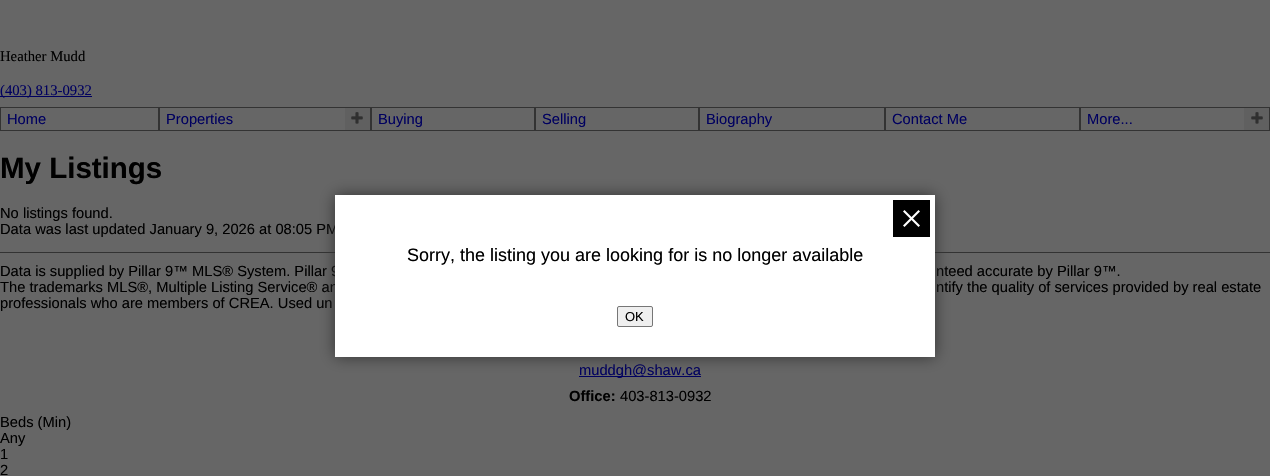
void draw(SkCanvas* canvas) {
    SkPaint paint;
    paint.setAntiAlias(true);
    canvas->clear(0xFF666666);
    SkFont font1(fontMgr->matchFamilyStyle("Liberation Serif", SkFontStyle::Normal()), 14.7f);
    font1.setSubpixel(true);
    paint.setColor(0xFF000000);
    canvas->drawString("Heather Mudd", 0, 61, font1, paint);
    paint.setColor(0xFF00005F);
    canvas->drawRect(SkRect::MakeXYWH(0, 96, 92, 1), paint);
    canvas->drawString("(403) 813-0932", 0, 95, font1, paint);
    paint.setStyle(SkPaint::kStroke_Style);
    paint.setStrokeWidth(1);
    paint.setColor(0xFF333333);
    canvas->drawRect(SkRect::MakeXYWH(0.5f, 107.5f, 158, 23), paint);
    SkFont font2(fontMgr->matchFamilyStyle("Liberation Sans", SkFontStyle::Normal()), 14.7f);
    font2.setSubpixel(true);
    paint.setStyle(SkPaint::kFill_Style);
    paint.setColor(0xFF00005F);
    canvas->drawString("Home", 7, 124, font2, paint);
    paint.setStyle(SkPaint::kStroke_Style);
    paint.setColor(0xFF333333);
    canvas->drawRect(SkRect::MakeXYWH(159.5f, 107.5f, 211, 23), paint);
    paint.setStyle(SkPaint::kFill_Style);
    paint.setColor(0xFF00005F);
    canvas->drawString("Properties", 166, 124, font2, paint);
    paint.setColor(0xFF606060);
    canvas->drawRect(SkRect::MakeXYWH(345, 108, 25, 22), paint);
    canvas->drawImageRect(SkImages::DeferredFromEncodedData(SkData::MakeFromFileName("img1.png")), SkRect::MakeXYWH(351, 112, 12, 12), SkSamplingOptions());
    paint.setStyle(SkPaint::kStroke_Style);
    paint.setColor(0xFF333333);
    canvas->drawRect(SkRect::MakeXYWH(371.5f, 107.5f, 163, 23), paint);
    paint.setStyle(SkPaint::kFill_Style);
    paint.setColor(0xFF00005F);
    canvas->drawString("Buying", 378, 124, font2, paint);
    paint.setStyle(SkPaint::kStroke_Style);
    paint.setColor(0xFF333333);
    canvas->drawRect(SkRect::MakeXYWH(535.5f, 107.5f, 163, 23), paint);
    paint.setStyle(SkPaint::kFill_Style);
    paint.setColor(0xFF00005F);
    canvas->drawString("Selling", 542, 124, font2, paint);
    paint.setStyle(SkPaint::kStroke_Style);
    paint.setColor(0xFF333333);
    canvas->drawRect(SkRect::MakeXYWH(699.5f, 107.5f, 185, 23), paint);
    paint.setStyle(SkPaint::kFill_Style);
    paint.setColor(0xFF00005F);
    canvas->drawString("Biography", 706, 124, font2, paint);
    paint.setStyle(SkPaint::kStroke_Style);
    paint.setColor(0xFF333333);
    canvas->drawRect(SkRect::MakeXYWH(885.5f, 107.5f, 194, 23), paint);
    paint.setStyle(SkPaint::kFill_Style);
    paint.setColor(0xFF00005F);
    canvas->drawString("Contact Me", 892, 124, font2, paint);
    paint.setStyle(SkPaint::kStroke_Style);
    paint.setColor(0xFF333333);
    canvas->drawRect(SkRect::MakeXYWH(1080.5f, 107.5f, 189, 23), paint);
    paint.setStyle(SkPaint::kFill_Style);
    paint.setColor(0xFF00005F);
    canvas->drawString("More...", 1087, 124, font2, paint);
    paint.setColor(0xFF606060);
    canvas->drawRect(SkRect::MakeXYWH(1244, 108, 25, 22), paint);
    canvas->drawImageRect(SkImages::DeferredFromEncodedData(SkData::MakeFromFileName("img1.png")), SkRect::MakeXYWH(1251, 112, 12, 12), SkSamplingOptions());
    SkFont font3(fontMgr->matchFamilyStyle("Liberation Sans", SkFontStyle::Bold()), 29.5f);
    font3.setSubpixel(true);
    paint.setColor(0xFF000000);
    canvas->drawString("My Listings", 0, 178, font3, paint);
    canvas->drawString("No listings found.", 0, 218, font2, paint);
    canvas->drawString("Data was last updated January 9, 2026 at 08:05 PM", 0, 234, font2, paint);
    paint.setColor(0xFF333333);
    canvas->drawRect(SkRect::MakeXYWH(0, 252, 1270, 1), paint);
    paint.setColor(0xFF000000);
    canvas->drawString("Data is supplied by Pillar 9™ MLS® System. Pillar 9", 0, 276, font2, paint);
    canvas->drawString("nteed accurate by Pillar 9™.", 936, 276, font2, paint);
    canvas->drawString("The trademarks MLS®, Multiple Listing Service® an", 0, 292, font2, paint);
    canvas->drawString("ntify the quality of services provided by real estate", 936, 292, font2, paint);
    canvas->drawString("professionals who are members of CREA. Used un", 0, 308, font2, paint);
    paint.setColor(0xFF00005F);
    canvas->drawRect(SkRect::MakeXYWH(579, 376, 122, 1), paint);
    canvas->drawString("muddgh@shaw.ca", 579, 375, font2, paint);
    SkFont font4(fontMgr->matchFamilyStyle("Liberation Sans", SkFontStyle::Bold()), 14.7f);
    font4.setSubpixel(true);
    paint.setColor(0xFF000000);
    canvas->drawString("Office:", 569, 401, font4, paint);
    canvas->drawString("403-813-0932", 620, 401, font2, paint);
    canvas->drawString("Beds (Min)", 0, 427, font2, paint);
    canvas->drawString("Any", 0, 443, font2, paint);
    canvas->drawString("1", 0, 459, font2, paint);
    canvas->drawString("2", 0, 475, font2, paint);
    paint.setColor(0xFF333333);
    paint.setMaskFilter(SkMaskFilter::MakeBlur(kNormal_SkBlurStyle, 7.5f));
    canvas->drawRect(SkRect::MakeXYWH(335, 195, 600, 162), paint);
    paint.setMaskFilter(nullptr);
    paint.setColor(0xFFFFFFFF);
    canvas->drawRect(SkRect::MakeXYWH(335, 195, 600, 162), paint);
    paint.setColor(0xFF000000);
    canvas->drawRect(SkRect::MakeXYWH(893, 200, 37, 37), paint);
    paint.setColor(0xFFFFFFFF);
    canvas->drawPath(SkPathBuilder().moveTo(918.5f, 210).lineTo(920, 211.5f).lineTo(904.5f, 227).lineTo(903, 225.5f).close().detach(), paint);
    canvas->drawPath(SkPathBuilder().moveTo(903, 211.5f).lineTo(904.5f, 210).lineTo(920, 225.5f).lineTo(918.5f, 227).close().detach(), paint);
    SkFont font5(fontMgr->matchFamilyStyle("Liberation Sans", SkFontStyle::Normal()), 18);
    font5.setSubpixel(true);
    paint.setColor(0xFF000000);
    canvas->drawString("Sorry, the listing you are looking for is no longer available", 407, 261, font5, paint);
    paint.setColor(0xFFEFEFEF);
    canvas->drawRoundRect(SkRect::MakeXYWH(617.5f, 306.5f, 35, 20), 1.5f, 1.5f, paint);
    paint.setStyle(SkPaint::kStroke_Style);
    paint.setColor(0xFF767676);
    canvas->drawRoundRect(SkRect::MakeXYWH(617.5f, 306.5f, 35, 20), 1.5f, 1.5f, paint);
    SkFont font6(fontMgr->matchFamilyStyle("Liberation Sans", SkFontStyle::Normal()), 13);
    font6.setSubpixel(true);
    paint.setStyle(SkPaint::kFill_Style);
    paint.setColor(0xFF000000);
    canvas->drawString("OK", 625, 321, font6, paint);
}
